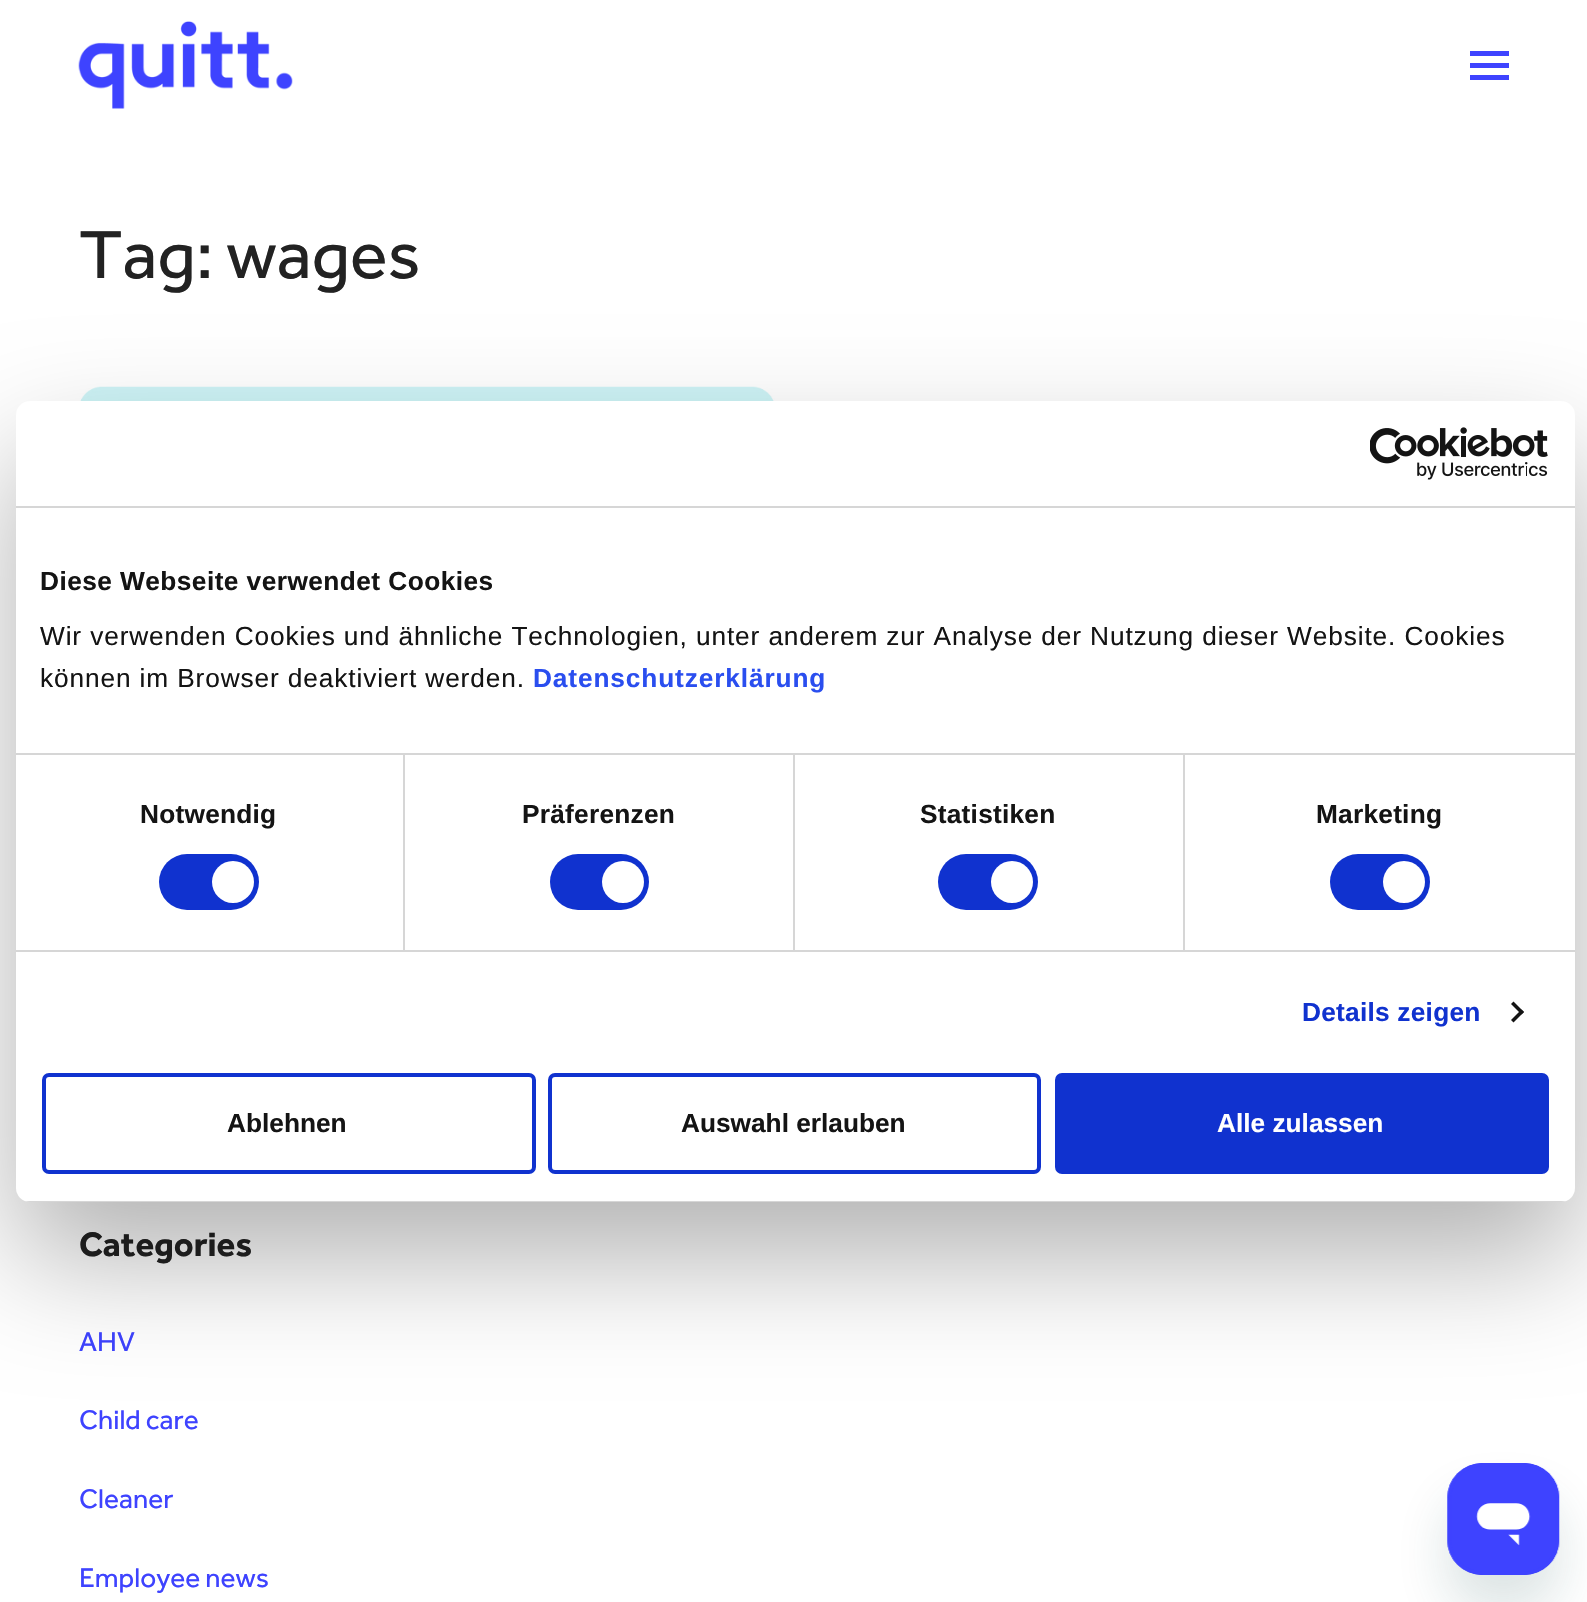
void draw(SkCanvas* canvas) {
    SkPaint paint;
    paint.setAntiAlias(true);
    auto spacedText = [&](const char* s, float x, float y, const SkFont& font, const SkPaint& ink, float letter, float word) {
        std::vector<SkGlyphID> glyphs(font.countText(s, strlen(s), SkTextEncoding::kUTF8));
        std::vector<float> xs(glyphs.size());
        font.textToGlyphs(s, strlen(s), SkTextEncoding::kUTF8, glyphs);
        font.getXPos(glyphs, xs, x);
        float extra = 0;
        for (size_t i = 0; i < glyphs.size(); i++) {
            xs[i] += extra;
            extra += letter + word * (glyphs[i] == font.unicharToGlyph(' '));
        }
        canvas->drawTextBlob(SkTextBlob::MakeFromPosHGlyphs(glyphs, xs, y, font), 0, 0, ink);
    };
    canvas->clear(0xFFFFFFFF);
    canvas->drawImageRect(SkImages::DeferredFromEncodedData(SkData::MakeFromFileName("img1.png")), SkRect::MakeXYWH(78, 21, 215, 88), SkSamplingOptions());
    paint.setColor(0xFF3E43FF);
    canvas->drawRect(SkRect::MakeXYWH(1470, 63, 39, 5), paint);
    canvas->drawRect(SkRect::MakeXYWH(1470, 51, 39, 5), paint);
    canvas->drawRect(SkRect::MakeXYWH(1470, 75, 39, 5), paint);
    SkFont font1(fontMgr->matchFamilyStyle("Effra", SkFontStyle::Normal()), 70);
    font1.setSubpixel(true);
    paint.setColor(0xFF222222);
    canvas->drawString("Tag: wages", 79, 278, font1, paint);
    canvas->drawImageRect(SkImages::DeferredFromEncodedData(SkData::MakeFromFileName("img2.png")), SkRect::MakeXYWH(78, 386, 698, 15), SkSamplingOptions());
    SkFont font2(fontMgr->matchFamilyStyle("Effra", SkFontStyle::Bold()), 35);
    font2.setSubpixel(true);
    canvas->drawString("Categories", 79, 1256, font2, paint);
    SkFont font3(fontMgr->matchFamilyStyle("Effra", SkFontStyle::Normal()), 28);
    font3.setSubpixel(true);
    paint.setColor(0xFF3E43FF);
    canvas->drawString("AHV", 79, 1351, font3, paint);
    canvas->drawString("Child care", 79, 1429, font3, paint);
    canvas->drawString("Cleaner", 79, 1508, font3, paint);
    canvas->drawString("Employee news", 79, 1587, font3, paint);
    paint.setColor(0x4D000000);
    paint.setMaskFilter(SkMaskFilter::MakeBlur(kNormal_SkBlurStyle, 59.5f));
    canvas->drawRoundRect(SkRect::MakeXYWH(16, 457, 1559, 801), 14, 14, paint);
    paint.setMaskFilter(nullptr);
    paint.setColor(0xFFFFFFFF);
    canvas->drawRoundRect(SkRect::MakeXYWH(16, 401, 1559, 801), 14, 14, paint);
    paint.setColor(0xFFD6D6D6);
    canvas->drawRect(SkRect::MakeXYWH(16, 506, 1559, 2), paint);
    canvas->drawImageRect(SkImages::DeferredFromEncodedData(SkData::MakeFromFileName("img3.png")), SkRect::MakeXYWH(1370, 427, 178, 53), SkSamplingOptions());
    canvas->drawRect(SkRect::MakeXYWH(403, 754, 2, 196), paint);
    canvas->drawRect(SkRect::MakeXYWH(793, 754, 2, 196), paint);
    canvas->drawRect(SkRect::MakeXYWH(1183, 754, 2, 196), paint);
    canvas->drawRect(SkRect::MakeXYWH(16, 753, 1559, 2), paint);
    SkFont font4(fontMgr->matchFamilyStyle("Liberation Sans", SkFontStyle::Bold()), 26.25f);
    font4.setSubpixel(true);
    paint.setColor(0xFF141414);
    spacedText("Diese Webseite verwendet Cookies", 40, 590, font4, paint, 0.45f, 0);
    SkFont font5(fontMgr->matchFamilyStyle("Liberation Sans", SkFontStyle::Normal()), 26.25f);
    font5.setSubpixel(true);
    spacedText("Wir verwenden Cookies und ähnliche Technologien, unter anderem zur Analyse der Nutzung dieser Website. Cookies", 40, 645, font5, paint, 0.88f, 0);
    spacedText("können im Browser deaktiviert werden.", 40, 687, font5, paint, 0.88f, 0);
    paint.setColor(0xFF2A4EEF);
    spacedText("Datenschutzerklärung", 533, 687, font4, paint, 0.88f, 0);
    paint.setColor(0xFFD6D6D6);
    canvas->drawRect(SkRect::MakeXYWH(16, 950, 1559, 2), paint);
    paint.setColor(0xFF141414);
    spacedText("Notwendig", 140, 823, font4, paint, 0.25f, 0);
    paint.setColor(0xFF1032CF);
    canvas->drawRoundRect(SkRect::MakeXYWH(159, 854, 100, 56), 28, 28, paint);
    paint.setColor(0xFFFFFFFF);
    canvas->drawCircle(233, 882, 21, paint);
    paint.setColor(0xFF141414);
    spacedText("Präferenzen", 522, 823, font4, paint, 0.25f, 0);
    paint.setColor(0xFF1032CF);
    canvas->drawRoundRect(SkRect::MakeXYWH(550, 854, 99, 56), 28, 28, paint);
    paint.setColor(0xFFFFFFFF);
    canvas->drawCircle(623, 882, 21, paint);
    paint.setColor(0xFF141414);
    spacedText("Statistiken", 920, 823, font4, paint, 0.25f, 0);
    paint.setColor(0xFF1032CF);
    canvas->drawRoundRect(SkRect::MakeXYWH(938, 854, 100, 56), 28, 28, paint);
    paint.setColor(0xFFFFFFFF);
    canvas->drawCircle(1012, 882, 21, paint);
    paint.setColor(0xFF141414);
    spacedText("Marketing", 1316, 823, font4, paint, 0.25f, 0);
    paint.setColor(0xFF1032CF);
    canvas->drawRoundRect(SkRect::MakeXYWH(1330, 854, 100, 56), 28, 28, paint);
    paint.setColor(0xFFFFFFFF);
    canvas->drawCircle(1404, 882, 21, paint);
    paint.setColor(0xFF1032CF);
    spacedText("Details zeigen", 1302, 1021, font4, paint, 0.25f, 0);
    paint.setColor(0xFF141414);
    canvas->drawPath(SkPathBuilder().moveTo(1513.5f, 1001.5f).lineTo(1524, 1012).lineTo(1521.5f, 1014.5f).lineTo(1511, 1004).close().detach(), paint);
    canvas->drawPath(SkPathBuilder().moveTo(1521.5f, 1009.5f).lineTo(1524, 1012).lineTo(1513.5f, 1022.5f).lineTo(1511, 1020).close().detach(), paint);
    canvas->save();
    canvas->clipPath(SkPathBuilder().moveTo(30, 401).lineTo(1561, 401).cubicTo(1568.5f, 401, 1575, 407.5f, 1575, 415).lineTo(1575, 1188).cubicTo(1575, 1195.5f, 1568.5f, 1202, 1561, 1202).lineTo(30, 1202).cubicTo(22.5f, 1202, 16, 1195.5f, 16, 1188).lineTo(16, 415).cubicTo(16, 407.5f, 22.5f, 401, 30, 401).close().detach(), true);
    paint.setColor(0xFFD6D6D6);
    canvas->drawRect(SkRect::MakeXYWH(25, 1201, 1541, 1), paint);
    canvas->restore();
    paint.setStyle(SkPaint::kStroke_Style);
    paint.setStrokeWidth(4);
    paint.setColor(0xFF1032CF);
    canvas->drawRoundRect(SkRect::MakeXYWH(44, 1075, 490, 97), 5, 5, paint);
    paint.setStyle(SkPaint::kFill_Style);
    paint.setColor(0xFF141414);
    canvas->drawString("Ablehnen", 227, 1132, font4, paint);
    paint.setStyle(SkPaint::kStroke_Style);
    paint.setColor(0xFF1032CF);
    canvas->drawRoundRect(SkRect::MakeXYWH(550, 1075, 489, 97), 5, 5, paint);
    paint.setStyle(SkPaint::kFill_Style);
    paint.setColor(0xFF141414);
    canvas->drawString("Auswahl erlauben", 681, 1132, font4, paint);
    paint.setColor(0xFF1032CF);
    canvas->drawRoundRect(SkRect::MakeXYWH(1057, 1075, 490, 97), 5, 5, paint);
    paint.setStyle(SkPaint::kStroke_Style);
    canvas->drawRoundRect(SkRect::MakeXYWH(1057, 1075, 490, 97), 5, 5, paint);
    paint.setStyle(SkPaint::kFill_Style);
    paint.setColor(0xFFFFFFFF);
    canvas->drawString("Alle zulassen", 1217, 1132, font4, paint);
    paint.setColor(0x2617494D);
    paint.setMaskFilter(SkMaskFilter::MakeBlur(kNormal_SkBlurStyle, 26));
    canvas->drawRoundRect(SkRect::MakeXYWH(1447, 1498, 112, 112), 35, 35, paint);
    paint.setMaskFilter(nullptr);
    canvas->drawImageRect(SkImages::DeferredFromEncodedData(SkData::MakeFromFileName("img4.png")), SkRect::MakeXYWH(1447, 1463, 113, 112), SkSamplingOptions());
}
